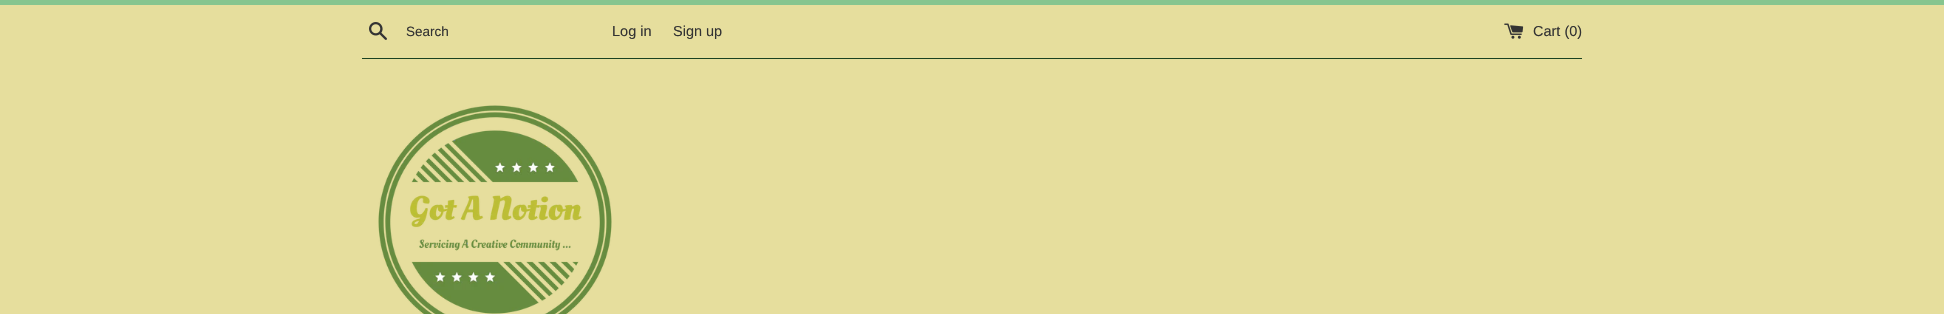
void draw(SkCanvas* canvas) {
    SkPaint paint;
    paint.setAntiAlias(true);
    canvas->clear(0xFFE6DE9D);
    paint.setColor(0xFF86C58F);
    canvas->drawRect(SkRect::MakeXYWH(0, 0, 1944, 5), paint);
    canvas->drawImageRect(SkImages::DeferredFromEncodedData(SkData::MakeFromFileName("img1.png")), SkRect::MakeXYWH(369, 22, 18, 18), SkSamplingOptions());
    SkFont font1(fontMgr->matchFamilyStyle("Liberation Sans", SkFontStyle::Normal()), 13.5f);
    font1.setSubpixel(true);
    paint.setColor(0xFF333333);
    canvas->drawString("Search", 406, 36, font1, paint);
    SkFont font2(fontMgr->matchFamilyStyle("Liberation Sans", SkFontStyle::Normal()), 14.5f);
    font2.setSubpixel(true);
    canvas->drawString("Log in", 612, 36, font2, paint);
    canvas->drawString("Sign up", 673, 36, font2, paint);
    canvas->drawImageRect(SkImages::DeferredFromEncodedData(SkData::MakeFromFileName("img2.png")), SkRect::MakeXYWH(1504, 23, 20, 16), SkSamplingOptions());
    canvas->drawString("Cart (0)", 1533, 36, font2, paint);
    paint.setColor(0xFF1B4220);
    canvas->drawRect(SkRect::MakeXYWH(362, 58, 1220, 1), paint);
    canvas->drawImageRect(SkImages::DeferredFromEncodedData(SkData::MakeFromFileName("img3.png")), SkRect::MakeXYWH(378, 105, 234, 209), SkSamplingOptions());
}
